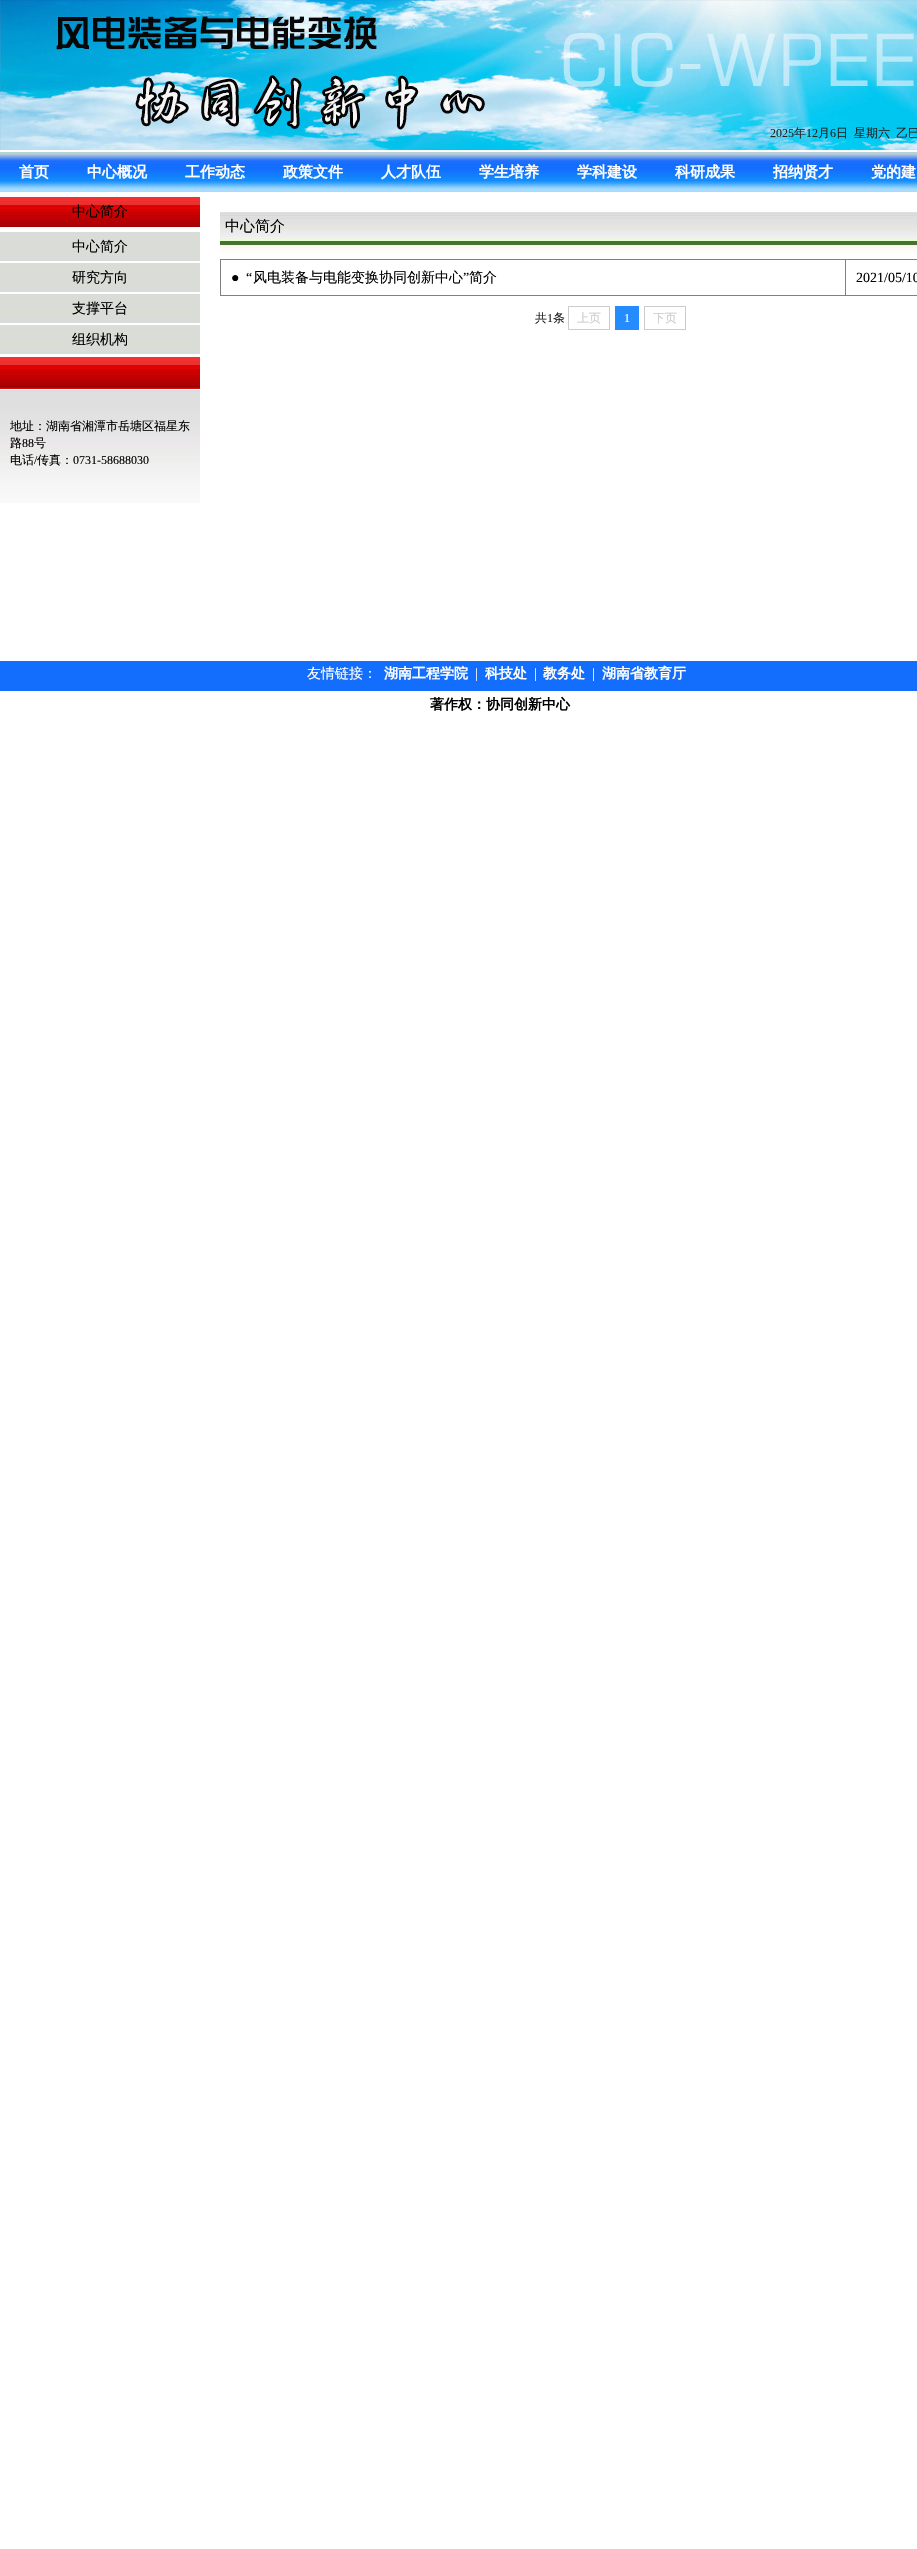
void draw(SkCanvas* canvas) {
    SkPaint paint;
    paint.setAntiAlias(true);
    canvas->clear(0xFFFFFFFF);
    canvas->drawImageRect(SkImages::DeferredFromEncodedData(SkData::MakeFromFileName("img1.png")), SkRect::MakeXYWH(0, 0, 917, 150), SkSamplingOptions());
    SkFont font1(fontMgr->matchFamilyStyle("Liberation Serif", SkFontStyle::Normal()), 12);
    font1.setSubpixel(true);
    paint.setColor(0xFF222222);
    canvas->drawString("2025", 770, 137, font1, paint);
    SkFont font2(fontMgr->matchFamilyStyle("WenQuanYi Zen Hei", SkFontStyle(500, SkFontStyle::kNormal_Width, SkFontStyle::kUpright_Slant)), 12);
    font2.setSubpixel(true);
    canvas->drawString("年", 794, 137, font2, paint);
    canvas->drawString("12", 806, 137, font1, paint);
    canvas->drawString("月", 818, 137, font2, paint);
    canvas->drawString("6", 830, 137, font1, paint);
    canvas->drawString("日", 836, 137, font2, paint);
    canvas->drawString("星期六", 854, 137, font2, paint);
    canvas->drawString("乙巳", 896, 137, font2, paint);
    canvas->drawImageRect(SkImages::DeferredFromEncodedData(SkData::MakeFromFileName("img2.png")), SkRect::MakeXYWH(0, 152, 917, 40), SkSamplingOptions());
    SkFont font3(fontMgr->matchFamilyStyle("WenQuanYi Zen Hei", SkFontStyle::Bold()), 15);
    font3.setSubpixel(true);
    paint.setColor(0xFFFFFFFF);
    canvas->drawString("首页", 19, 177, font3, paint);
    canvas->drawString("中心概况", 87, 177, font3, paint);
    canvas->drawString("工作动态", 185, 177, font3, paint);
    canvas->drawString("政策文件", 283, 177, font3, paint);
    canvas->drawString("人才队伍", 381, 177, font3, paint);
    canvas->drawString("学生培养", 479, 177, font3, paint);
    canvas->drawString("学科建设", 577, 177, font3, paint);
    canvas->drawString("科研成果", 675, 177, font3, paint);
    canvas->drawString("招纳贤才", 773, 177, font3, paint);
    canvas->drawString("党的建", 871, 177, font3, paint);
    canvas->drawImageRect(SkImages::DeferredFromEncodedData(SkData::MakeFromFileName("img3.png")), SkRect::MakeXYWH(0, 197, 200, 30), SkSamplingOptions());
    SkFont font4(fontMgr->matchFamilyStyle("WenQuanYi Zen Hei", SkFontStyle(500, SkFontStyle::kNormal_Width, SkFontStyle::kUpright_Slant)), 14);
    font4.setSubpixel(true);
    paint.setColor(0xFF000000);
    canvas->drawString("中心简介", 72, 216, font4, paint);
    canvas->drawImageRect(SkImages::DeferredFromEncodedData(SkData::MakeFromFileName("img4.png")), SkRect::MakeXYWH(0, 232, 200, 29), SkSamplingOptions());
    canvas->drawString("中心简介", 72, 251, font4, paint);
    canvas->drawImageRect(SkImages::DeferredFromEncodedData(SkData::MakeFromFileName("img4.png")), SkRect::MakeXYWH(0, 263, 200, 29), SkSamplingOptions());
    canvas->drawString("研究方向", 72, 282, font4, paint);
    canvas->drawImageRect(SkImages::DeferredFromEncodedData(SkData::MakeFromFileName("img4.png")), SkRect::MakeXYWH(0, 294, 200, 29), SkSamplingOptions());
    canvas->drawString("支撑平台", 72, 313, font4, paint);
    canvas->drawImageRect(SkImages::DeferredFromEncodedData(SkData::MakeFromFileName("img4.png")), SkRect::MakeXYWH(0, 325, 200, 29), SkSamplingOptions());
    canvas->drawString("组织机构", 72, 344, font4, paint);
    canvas->drawImageRect(SkImages::DeferredFromEncodedData(SkData::MakeFromFileName("img5.png")), SkRect::MakeXYWH(0, 357, 200, 146), SkSamplingOptions());
    canvas->drawString("地址：湖南省湘潭市岳塘区福星东", 10, 430, font2, paint);
    canvas->drawString("路", 10, 447, font2, paint);
    canvas->drawString("88", 22, 447, font1, paint);
    canvas->drawString("号", 34, 447, font2, paint);
    canvas->drawString("电话", 10, 464, font2, paint);
    canvas->drawString("/", 34, 464, font1, paint);
    canvas->drawString("传真：", 37, 464, font2, paint);
    canvas->drawString("0731-58688030", 73, 464, font1, paint);
    canvas->drawImageRect(SkImages::DeferredFromEncodedData(SkData::MakeFromFileName("img6.png")), SkRect::MakeXYWH(220, 212, 697, 42), SkSamplingOptions());
    SkFont font5(fontMgr->matchFamilyStyle("WenQuanYi Zen Hei", SkFontStyle(500, SkFontStyle::kNormal_Width, SkFontStyle::kUpright_Slant)), 15);
    font5.setSubpixel(true);
    canvas->drawString("中心简介", 225, 231, font5, paint);
    paint.setColor(0xFF808080);
    canvas->drawRect(SkRect::MakeXYWH(220, 259, 697, 1), paint);
    canvas->drawRect(SkRect::MakeXYWH(220, 295, 697, 1), paint);
    canvas->drawRect(SkRect::MakeXYWH(220, 259, 1, 37), paint);
    SkFont font6(fontMgr->matchFamilyStyle("Liberation Serif", SkFontStyle::Normal()), 14);
    font6.setSubpixel(true);
    paint.setColor(0xFF000000);
    canvas->drawString("●", 231, 282, font6, paint);
    canvas->drawString("“", 246, 282, font6, paint);
    canvas->drawString("风电装备与电能变换协同创新中心", 253, 282, font4, paint);
    canvas->drawString("”", 463, 282, font6, paint);
    canvas->drawString("简介", 469, 282, font4, paint);
    paint.setColor(0xFF808080);
    canvas->drawRect(SkRect::MakeXYWH(845, 259, 1, 37), paint);
    paint.setColor(0xFF000000);
    canvas->drawString("2021/05/10", 856, 282, font6, paint);
    paint.setColor(0xFF222222);
    canvas->drawString("共", 535, 322, font2, paint);
    canvas->drawString("1", 547, 322, font1, paint);
    canvas->drawString("条", 553, 322, font2, paint);
    paint.setStyle(SkPaint::kStroke_Style);
    paint.setStrokeWidth(1);
    paint.setColor(0xFFCCCCCC);
    canvas->drawRect(SkRect::MakeXYWH(568.5f, 306.5f, 41, 23), paint);
    paint.setStyle(SkPaint::kFill_Style);
    canvas->drawString("上页", 577, 322, font2, paint);
    paint.setColor(0xFF258CFF);
    canvas->drawRect(SkRect::MakeXYWH(615, 306, 24, 24), paint);
    paint.setColor(0xFFFFFFFF);
    canvas->drawString("1", 624, 322, font1, paint);
    paint.setStyle(SkPaint::kStroke_Style);
    paint.setColor(0xFFCCCCCC);
    canvas->drawRect(SkRect::MakeXYWH(644.5f, 306.5f, 41, 23), paint);
    paint.setStyle(SkPaint::kFill_Style);
    canvas->drawString("下页", 653, 322, font2, paint);
    paint.setColor(0xFF136EFD);
    canvas->drawRect(SkRect::MakeXYWH(0, 661, 917, 30), paint);
    paint.setColor(0xFFFFFFFF);
    canvas->drawString("友情链接：", 307, 678, font4, paint);
    SkFont font7(fontMgr->matchFamilyStyle("WenQuanYi Zen Hei", SkFontStyle::Bold()), 14);
    font7.setSubpixel(true);
    canvas->drawString("湖南工程学院", 384, 678, font7, paint);
    canvas->drawString("|", 475, 678, font6, paint);
    canvas->drawString("科技处", 485, 678, font7, paint);
    canvas->drawString("|", 534, 678, font6, paint);
    canvas->drawString("教务处", 543, 678, font7, paint);
    canvas->drawString("|", 592, 678, font6, paint);
    canvas->drawString("湖南省教育厅", 602, 678, font7, paint);
    paint.setColor(0xFF000000);
    canvas->drawString("著作权：协同创新中心", 430, 709, font7, paint);
}
